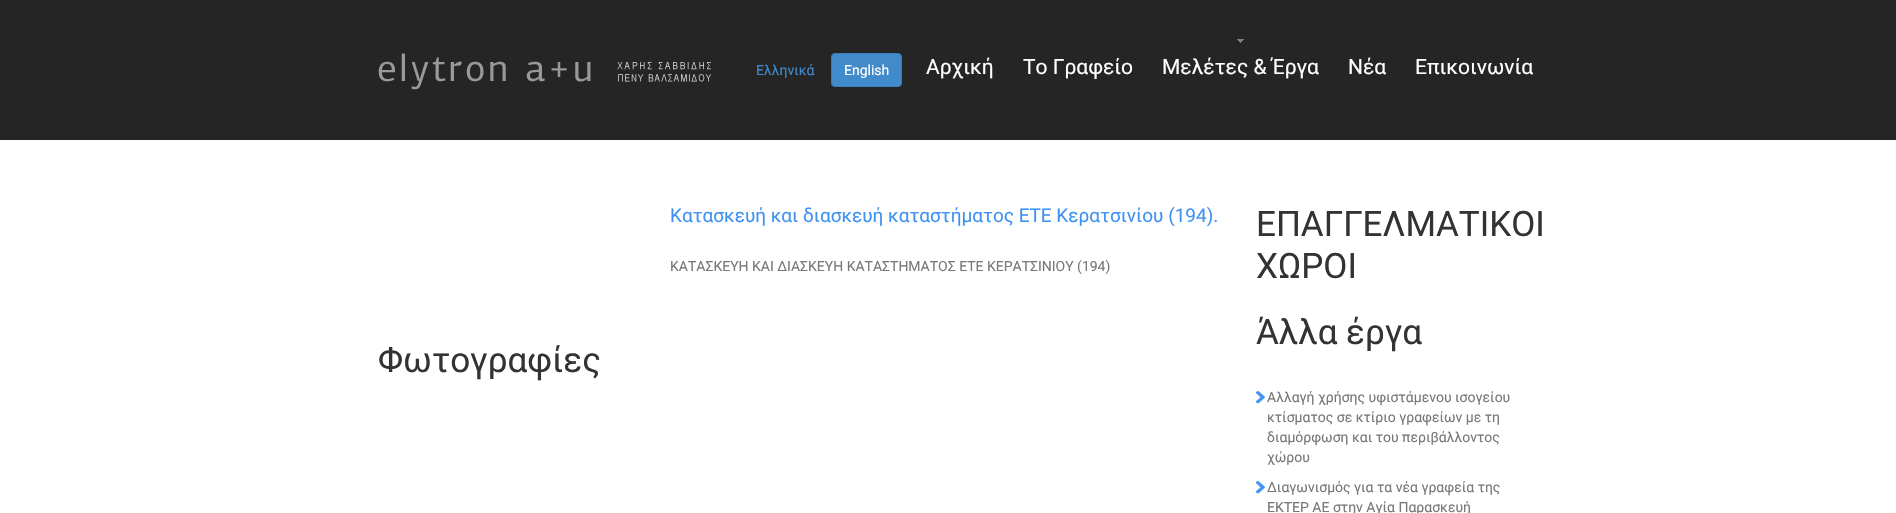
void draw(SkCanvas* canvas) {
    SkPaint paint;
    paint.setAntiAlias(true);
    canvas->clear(0xFFFFFFFF);
    paint.setColor(0xFF252525);
    canvas->drawRect(SkRect::MakeXYWH(0, 0, 1896, 140), paint);
    canvas->drawImageRect(SkImages::DeferredFromEncodedData(SkData::MakeFromFileName("img1.png")), SkRect::MakeXYWH(378, 53, 333, 37), SkSamplingOptions());
    SkFont font1(fontMgr->matchFamilyStyle("Roboto", SkFontStyle::Normal()), 14);
    font1.setSubpixel(true);
    paint.setColor(0xFF428BCA);
    canvas->drawString("Ελληνικά", 756, 75, font1, paint);
    canvas->drawRoundRect(SkRect::MakeXYWH(831.5f, 53.5f, 70, 33), 3.5f, 3.5f, paint);
    paint.setStyle(SkPaint::kStroke_Style);
    paint.setStrokeWidth(1);
    paint.setColor(0xFF357EBD);
    canvas->drawRoundRect(SkRect::MakeXYWH(831.5f, 53.5f, 70, 33), 3.5f, 3.5f, paint);
    paint.setStyle(SkPaint::kFill_Style);
    paint.setColor(0xFFFFFFFF);
    canvas->drawString("English", 844, 75, font1, paint);
    SkFont font2(fontMgr->matchFamilyStyle("Roboto", SkFontStyle::Normal()), 21);
    font2.setSubpixel(true);
    canvas->drawString("Αρχική", 926, 74, font2, paint);
    canvas->drawString("Το Γραφείο", 1023, 74, font2, paint);
    canvas->drawImageRect(SkImages::DeferredFromEncodedData(SkData::MakeFromFileName("img2.png")), SkRect::MakeXYWH(1237, 39, 7, 4), SkSamplingOptions());
    canvas->drawString("Μελέτες & Έργα", 1162, 74, font2, paint);
    canvas->drawString("Νέα", 1348, 74, font2, paint);
    canvas->drawString("Επικοινωνία", 1415, 74, font2, paint);
    SkFont font3(fontMgr->matchFamilyStyle("Roboto", SkFontStyle::Normal()), 19);
    font3.setSubpixel(true);
    paint.setColor(0xFF3E92F2);
    canvas->drawString("Κατασκευή και διασκευή καταστήματος ΕΤΕ Κερατσινίου (194).", 670, 222, font3, paint);
    paint.setColor(0xFF777777);
    canvas->drawString("ΚΑΤΑΣΚΕΥΗ ΚΑΙ ΔΙΑΣΚΕΥΗ ΚΑΤΑΣΤΗΜΑΤΟΣ ΕΤΕ ΚΕΡΑΤΣΙΝΙΟΥ (194)", 670, 271, font1, paint);
    SkFont font4(fontMgr->matchFamilyStyle("Roboto", SkFontStyle::Normal()), 35);
    font4.setSubpixel(true);
    paint.setColor(0xFF333333);
    canvas->drawString("Φωτογραφίες", 378, 372, font4, paint);
    canvas->drawString("ΕΠΑΓΓΕΛΜΑΤΙΚΟΙ", 1256, 236, font4, paint);
    canvas->drawString("ΧΩΡΟΙ", 1256, 278, font4, paint);
    canvas->drawString("Άλλα έργα", 1256, 344, font4, paint);
    canvas->drawImageRect(SkImages::DeferredFromEncodedData(SkData::MakeFromFileName("img3.png")), SkRect::MakeXYWH(1256, 391, 9, 13), SkSamplingOptions());
    paint.setColor(0xFF777777);
    canvas->drawString("Αλλαγή χρήσης υφιστάμενου ισογείου", 1267, 402, font1, paint);
    canvas->drawString("κτίσματος σε κτίριο γραφείων με τη", 1267, 422, font1, paint);
    canvas->drawString("διαμόρφωση και του περιβάλλοντος", 1267, 442, font1, paint);
    canvas->drawString("χώρου", 1267, 462, font1, paint);
    canvas->drawImageRect(SkImages::DeferredFromEncodedData(SkData::MakeFromFileName("img3.png")), SkRect::MakeXYWH(1256, 481, 9, 13), SkSamplingOptions());
    canvas->drawString("Διαγωνισμός για τα νέα γραφεία της", 1267, 492, font1, paint);
    canvas->drawString("ΕΚΤΕΡ ΑΕ στην Αγία Παρασκευή", 1267, 512, font1, paint);
}
